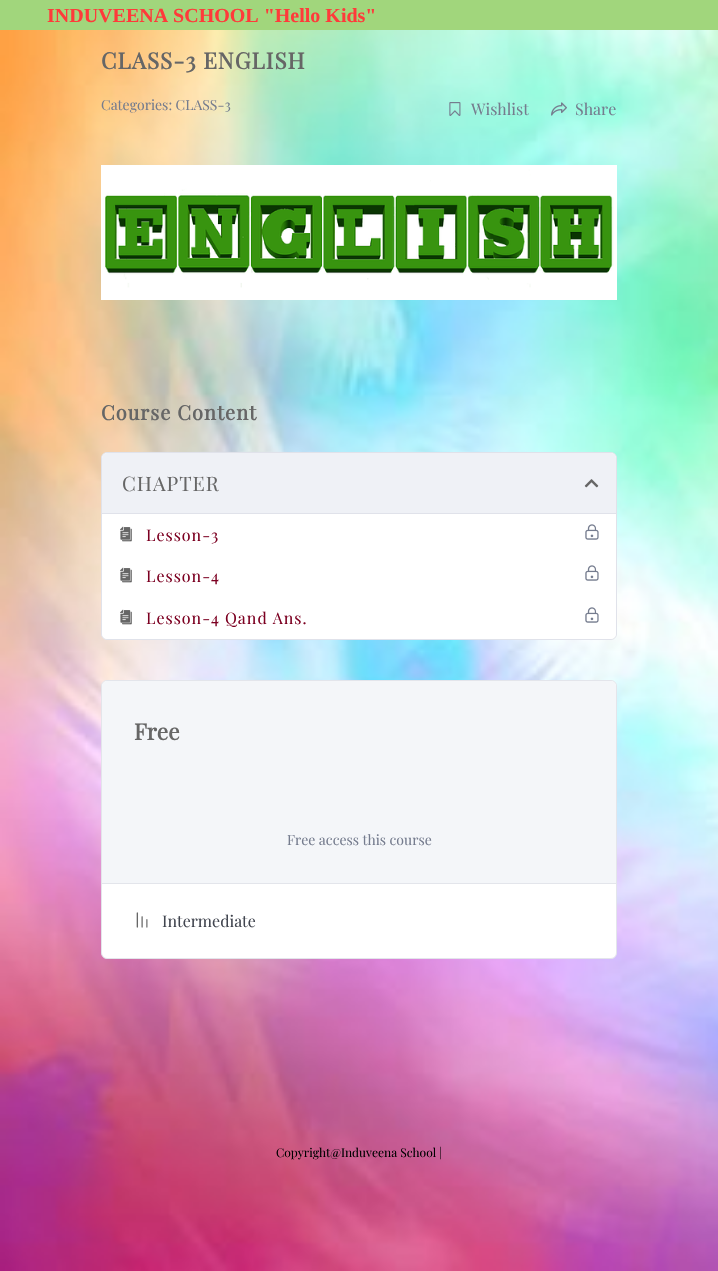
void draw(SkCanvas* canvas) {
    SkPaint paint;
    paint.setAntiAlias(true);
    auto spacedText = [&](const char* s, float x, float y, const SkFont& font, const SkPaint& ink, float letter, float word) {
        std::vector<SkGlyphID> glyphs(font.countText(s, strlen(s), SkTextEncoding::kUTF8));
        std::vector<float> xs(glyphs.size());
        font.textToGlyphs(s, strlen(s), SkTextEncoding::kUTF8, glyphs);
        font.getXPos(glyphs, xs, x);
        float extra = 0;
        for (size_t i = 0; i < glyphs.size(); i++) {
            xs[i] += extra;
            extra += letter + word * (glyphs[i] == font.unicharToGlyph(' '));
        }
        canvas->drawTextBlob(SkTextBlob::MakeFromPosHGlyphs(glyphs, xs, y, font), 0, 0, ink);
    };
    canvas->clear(0xFFFFFFFF);
    canvas->drawImageRect(SkImages::DeferredFromEncodedData(SkData::MakeFromFileName("img1.png")), SkRect::MakeXYWH(0, 30, 718, 1241), SkSamplingOptions());
    paint.setColor(0xFFA1D67C);
    canvas->drawRect(SkRect::MakeXYWH(0, 0, 718, 30), paint);
    SkFont font1(fontMgr->matchFamilyStyle("Liberation Serif", SkFontStyle::Bold()), 20);
    font1.setSubpixel(true);
    paint.setColor(0xFFFF3A3A);
    canvas->drawString("INDUVEENA SCHOOL \"Hello Kids\"", 47, 22, font1, paint);
    SkFont font2(fontMgr->matchFamilyStyle("Playfair Display", SkFontStyle::Bold()), 22.5f);
    font2.setSubpixel(true);
    paint.setColor(0xFF666666);
    spacedText("CLASS-3 ENGLISH", 101, 69, font2, paint, 1, 0);
    SkFont font3(fontMgr->matchFamilyStyle("Playfair Display", SkFontStyle::Normal()), 14);
    font3.setSubpixel(true);
    paint.setColor(0xFF757C8E);
    canvas->drawString("Categories: CLASS-3", 101, 110, font3, paint);
    canvas->drawImageRect(SkImages::DeferredFromEncodedData(SkData::MakeFromFileName("img2.png")), SkRect::MakeXYWH(449, 102, 12, 14), SkSamplingOptions());
    SkFont font4(fontMgr->matchFamilyStyle("Playfair Display", SkFontStyle::Normal()), 16);
    font4.setSubpixel(true);
    canvas->drawString("Wishlist", 471, 115, font4, paint);
    canvas->drawImageRect(SkImages::DeferredFromEncodedData(SkData::MakeFromFileName("img3.png")), SkRect::MakeXYWH(551, 102, 16, 14), SkSamplingOptions());
    canvas->drawString("Share", 575, 115, font4, paint);
    canvas->drawImageRect(SkImages::DeferredFromEncodedData(SkData::MakeFromFileName("img4.png")), SkRect::MakeXYWH(101, 165, 516, 135), SkSamplingOptions());
    SkFont font5(fontMgr->matchFamilyStyle("Playfair Display", SkFontStyle::Bold()), 20);
    font5.setSubpixel(true);
    paint.setColor(0xFF666666);
    spacedText("Course Content", 101, 420, font5, paint, 1, 0);
    paint.setColor(0xFFFFFFFF);
    canvas->drawRoundRect(SkRect::MakeXYWH(101.5f, 452.5f, 515, 187), 5.5f, 5.5f, paint);
    paint.setStyle(SkPaint::kStroke_Style);
    paint.setStrokeWidth(1);
    paint.setColor(0xFFE0E2EA);
    canvas->drawRoundRect(SkRect::MakeXYWH(101.5f, 452.5f, 515, 187), 5.5f, 5.5f, paint);
    paint.setStyle(SkPaint::kFill_Style);
    paint.setColor(0xFFEFF1F6);
    canvas->drawPath(SkPathBuilder().moveTo(108, 453).lineTo(610, 453).cubicTo(613.5f, 453, 616, 455.5f, 616, 459).lineTo(616, 513).lineTo(102, 513).lineTo(102, 459).cubicTo(102, 455.5f, 104.5f, 453, 108, 453).close().detach(), paint);
    SkFont font6(fontMgr->matchFamilyStyle("Playfair Display", SkFontStyle::Normal()), 20);
    font6.setSubpixel(true);
    paint.setColor(0xFF666666);
    spacedText("CHAPTER", 122, 491, font6, paint, 1, 0);
    canvas->drawImageRect(SkImages::DeferredFromEncodedData(SkData::MakeFromFileName("img5.png")), SkRect::MakeXYWH(584, 479, 15, 9), SkSamplingOptions());
    paint.setColor(0xFFE0E2EA);
    canvas->drawRect(SkRect::MakeXYWH(102, 513, 514, 1), paint);
    canvas->drawImageRect(SkImages::DeferredFromEncodedData(SkData::MakeFromFileName("img6.png")), SkRect::MakeXYWH(120, 526, 12, 16), SkSamplingOptions());
    paint.setColor(0xFF7C0021);
    spacedText("Lesson-3", 146, 541, font4, paint, 1, 0);
    canvas->drawImageRect(SkImages::DeferredFromEncodedData(SkData::MakeFromFileName("img7.png")), SkRect::MakeXYWH(585, 524, 14, 16), SkSamplingOptions());
    canvas->drawImageRect(SkImages::DeferredFromEncodedData(SkData::MakeFromFileName("img6.png")), SkRect::MakeXYWH(120, 567, 12, 16), SkSamplingOptions());
    spacedText("Lesson-4", 146, 582, font4, paint, 1, 0);
    canvas->drawImageRect(SkImages::DeferredFromEncodedData(SkData::MakeFromFileName("img7.png")), SkRect::MakeXYWH(585, 565, 14, 16), SkSamplingOptions());
    paint.setColor(0xFFFFFFFF);
    canvas->drawPath(SkPathBuilder().moveTo(102, 597).lineTo(616, 597).lineTo(616, 633).cubicTo(616, 636.5f, 613.5f, 639, 610, 639).lineTo(108, 639).cubicTo(104.5f, 639, 102, 636.5f, 102, 633).close().detach(), paint);
    canvas->drawImageRect(SkImages::DeferredFromEncodedData(SkData::MakeFromFileName("img6.png")), SkRect::MakeXYWH(120, 609, 12, 16), SkSamplingOptions());
    paint.setColor(0xFF7C0021);
    spacedText("Lesson-4 Qand Ans.", 146, 624, font4, paint, 1, 0);
    canvas->drawImageRect(SkImages::DeferredFromEncodedData(SkData::MakeFromFileName("img7.png")), SkRect::MakeXYWH(585, 607, 14, 16), SkSamplingOptions());
    paint.setColor(0xFFFFFFFF);
    canvas->drawRoundRect(SkRect::MakeXYWH(101.5f, 680.5f, 515, 278), 5.5f, 5.5f, paint);
    paint.setStyle(SkPaint::kStroke_Style);
    paint.setColor(0xFFE3E5EB);
    canvas->drawRoundRect(SkRect::MakeXYWH(101.5f, 680.5f, 515, 278), 5.5f, 5.5f, paint);
    paint.setStyle(SkPaint::kFill_Style);
    paint.setColor(0xFFF4F6F9);
    canvas->drawPath(SkPathBuilder().moveTo(108, 681).lineTo(610, 681).cubicTo(613.5f, 681, 616, 683.5f, 616, 687).lineTo(616, 883).lineTo(102, 883).lineTo(102, 687).cubicTo(102, 683.5f, 104.5f, 681, 108, 681).close().detach(), paint);
    paint.setColor(0xFF666666);
    canvas->drawString("Free", 134, 740, font2, paint);
    paint.setColor(0xFF757C8E);
    canvas->drawString("Free access this course", 287, 845, font3, paint);
    paint.setColor(0xFFE3E5EB);
    canvas->drawRect(SkRect::MakeXYWH(102, 883, 514, 1), paint);
    canvas->drawImageRect(SkImages::DeferredFromEncodedData(SkData::MakeFromFileName("img8.png")), SkRect::MakeXYWH(136, 912, 12, 16), SkSamplingOptions());
    paint.setColor(0xFF41454F);
    canvas->drawString("Intermediate", 162, 927, font4, paint);
    SkFont font7(fontMgr->matchFamilyStyle("Playfair Display", SkFontStyle::Normal()), 12);
    font7.setSubpixel(true);
    paint.setColor(0xFF000000);
    canvas->drawString("Copyright@Induveena School |", 276, 1157, font7, paint);
}
